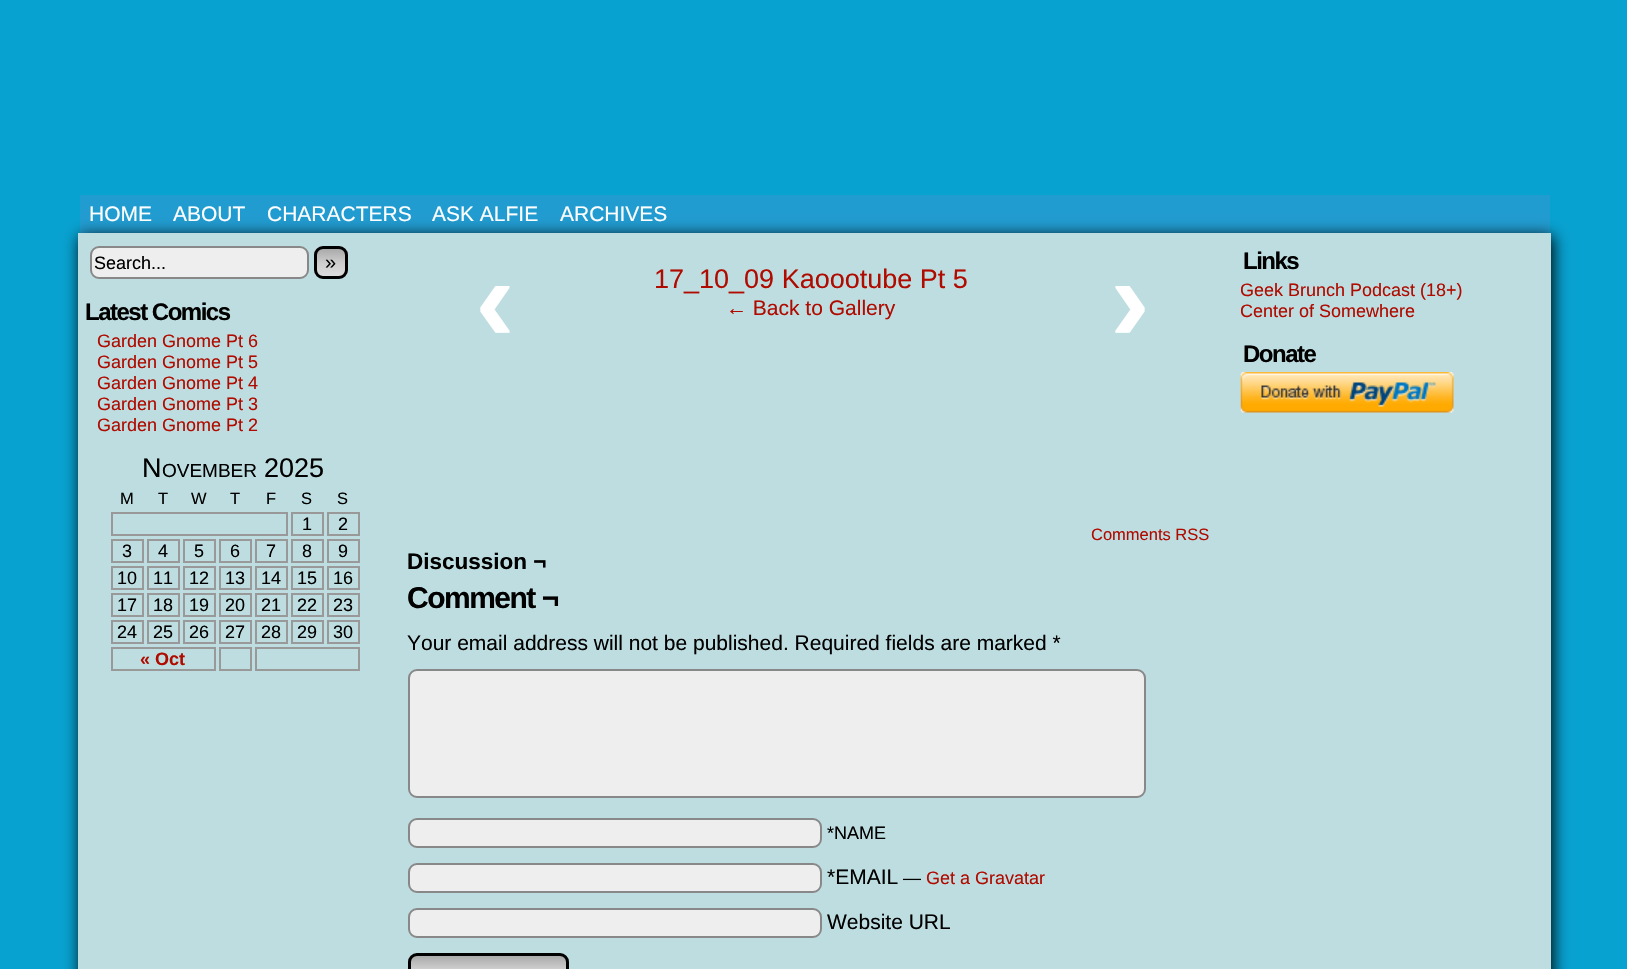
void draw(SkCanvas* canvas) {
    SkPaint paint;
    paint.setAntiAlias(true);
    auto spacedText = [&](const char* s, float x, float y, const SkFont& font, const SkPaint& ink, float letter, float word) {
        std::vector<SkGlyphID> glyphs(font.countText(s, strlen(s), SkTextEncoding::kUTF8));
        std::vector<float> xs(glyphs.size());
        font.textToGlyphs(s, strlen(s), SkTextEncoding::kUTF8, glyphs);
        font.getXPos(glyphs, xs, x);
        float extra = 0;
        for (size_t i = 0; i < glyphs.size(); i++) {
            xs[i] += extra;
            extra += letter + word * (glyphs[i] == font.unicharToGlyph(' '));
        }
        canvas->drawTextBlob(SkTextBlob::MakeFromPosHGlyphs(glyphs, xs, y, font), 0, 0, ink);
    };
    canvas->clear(0xFF08A2D1);
    paint.setColor(0xFF219CD1);
    canvas->drawRect(SkRect::MakeXYWH(80, 195, 1470, 38), paint);
    paint.setColor(0xFF000000);
    paint.setMaskFilter(SkMaskFilter::MakeBlur(kNormal_SkBlurStyle, 7.5f));
    canvas->drawRect(SkRect::MakeXYWH(80, 236, 1473, 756), paint);
    paint.setMaskFilter(nullptr);
    SkFont font1(fontMgr->matchFamilyStyle("Liberation Sans", SkFontStyle::Normal()), 21);
    font1.setSubpixel(true);
    paint.setColor(0xFFFFFFFF);
    canvas->drawString("HOME", 89, 221, font1, paint);
    canvas->drawString("ABOUT", 173, 221, font1, paint);
    canvas->drawString("CHARACTERS", 267, 221, font1, paint);
    canvas->drawString("ASK ALFIE", 432, 221, font1, paint);
    canvas->drawString("ARCHIVES", 560, 221, font1, paint);
    paint.setColor(0xFFBEDDE0);
    canvas->drawRect(SkRect::MakeXYWH(78, 233, 1473, 736), paint);
    paint.setColor(0xFFEEEEEE);
    canvas->drawRoundRect(SkRect::MakeXYWH(91, 247, 217, 31), 8, 8, paint);
    paint.setStyle(SkPaint::kStroke_Style);
    paint.setStrokeWidth(2);
    paint.setColor(0xFF888888);
    canvas->drawRoundRect(SkRect::MakeXYWH(91, 247, 217, 31), 8, 8, paint);
    SkFont font2(fontMgr->matchFamilyStyle("Liberation Sans", SkFontStyle::Normal()), 18);
    font2.setSubpixel(true);
    paint.setStyle(SkPaint::kFill_Style);
    paint.setColor(0xFF000000);
    canvas->drawString("Search...", 94, 269, font2, paint);
    canvas->save();
    canvas->clipPath(SkPathBuilder().moveTo(323, 246).lineTo(339, 246).cubicTo(344, 246, 348, 250, 348, 255).lineTo(348, 270).cubicTo(348, 275, 344, 279, 339, 279).lineTo(323, 279).cubicTo(318, 279, 314, 275, 314, 270).lineTo(314, 255).cubicTo(314, 250, 318, 246, 323, 246).close().detach(), true);
    {
        const SkColor colors[] = {0xFFAAAAAA, 0xFFCCCCCC, 0xFFDDDDDD};
        const float stops[] = {0, 0.5f, 1};
        const SkPoint ends[] = {{331, 249}, {331, 276}};
        paint.setShader(SkGradientShader::MakeLinear(ends, colors, stops, 3, SkTileMode::kClamp));
        paint.setAlpha(255);
    }
    canvas->drawRect(SkRect::MakeXYWH(314, 249, 34, 27), paint);
    canvas->restore();
    paint.setStyle(SkPaint::kStroke_Style);
    paint.setStrokeWidth(3);
    paint.setShader(nullptr);
    paint.setColor(0xFF000000);
    canvas->drawRoundRect(SkRect::MakeXYWH(315.5f, 247.5f, 31, 30), 7.5f, 7.5f, paint);
    SkFont font3(fontMgr->matchFamilyStyle("Liberation Sans", SkFontStyle::Normal()), 20);
    font3.setSubpixel(true);
    paint.setStyle(SkPaint::kFill_Style);
    canvas->drawString("»", 325, 269, font3, paint);
    SkFont font4(fontMgr->matchFamilyStyle("Liberation Sans", SkFontStyle::Bold()), 24);
    font4.setSubpixel(true);
    spacedText("Latest Comics", 85, 320, font4, paint, -1.5f, 0);
    paint.setColor(0xFFB00B00);
    canvas->drawString("Garden Gnome Pt 6", 97, 347, font2, paint);
    canvas->drawString("Garden Gnome Pt 5", 97, 368, font2, paint);
    canvas->drawString("Garden Gnome Pt 4", 97, 389, font2, paint);
    canvas->drawString("Garden Gnome Pt 3", 97, 410, font2, paint);
    canvas->drawString("Garden Gnome Pt 2", 97, 431, font2, paint);
    SkFont font5(fontMgr->matchFamilyStyle("Liberation Sans", SkFontStyle::Normal()), 27);
    font5.setSubpixel(true);
    paint.setColor(0xFF000000);
    canvas->drawString("N", 142, 477, font5, paint);
    SkFont font6(fontMgr->matchFamilyStyle("Liberation Sans", SkFontStyle::Normal()), 19);
    font6.setSubpixel(true);
    canvas->drawString("OVEMBER", 162, 477, font6, paint);
    canvas->drawString("2025", 264, 477, font5, paint);
    SkFont font7(fontMgr->matchFamilyStyle("Liberation Sans", SkFontStyle::Normal()), 16.5f);
    font7.setSubpixel(true);
    canvas->drawString("M", 120, 504, font7, paint);
    canvas->drawString("T", 158, 504, font7, paint);
    canvas->drawString("W", 191, 504, font7, paint);
    canvas->drawString("T", 230, 504, font7, paint);
    canvas->drawString("F", 266, 504, font7, paint);
    canvas->drawString("S", 301, 504, font7, paint);
    canvas->drawString("S", 337, 504, font7, paint);
    paint.setStyle(SkPaint::kStroke_Style);
    paint.setStrokeWidth(2);
    paint.setColor(0xFF999999);
    canvas->drawRect(SkRect::MakeXYWH(112, 513, 175, 22), paint);
    canvas->drawRect(SkRect::MakeXYWH(292, 513, 31, 22), paint);
    paint.setStyle(SkPaint::kFill_Style);
    paint.setColor(0xFF000000);
    canvas->drawString("1", 302, 530, font2, paint);
    paint.setStyle(SkPaint::kStroke_Style);
    paint.setColor(0xFF999999);
    canvas->drawRect(SkRect::MakeXYWH(328, 513, 31, 22), paint);
    paint.setStyle(SkPaint::kFill_Style);
    paint.setColor(0xFF000000);
    canvas->drawString("2", 338, 530, font2, paint);
    paint.setStyle(SkPaint::kStroke_Style);
    paint.setColor(0xFF999999);
    canvas->drawRect(SkRect::MakeXYWH(112, 540, 31, 22), paint);
    paint.setStyle(SkPaint::kFill_Style);
    paint.setColor(0xFF000000);
    canvas->drawString("3", 122, 557, font2, paint);
    paint.setStyle(SkPaint::kStroke_Style);
    paint.setColor(0xFF999999);
    canvas->drawRect(SkRect::MakeXYWH(148, 540, 31, 22), paint);
    paint.setStyle(SkPaint::kFill_Style);
    paint.setColor(0xFF000000);
    canvas->drawString("4", 158, 557, font2, paint);
    paint.setStyle(SkPaint::kStroke_Style);
    paint.setColor(0xFF999999);
    canvas->drawRect(SkRect::MakeXYWH(184, 540, 31, 22), paint);
    paint.setStyle(SkPaint::kFill_Style);
    paint.setColor(0xFF000000);
    canvas->drawString("5", 194, 557, font2, paint);
    paint.setStyle(SkPaint::kStroke_Style);
    paint.setColor(0xFF999999);
    canvas->drawRect(SkRect::MakeXYWH(220, 540, 31, 22), paint);
    paint.setStyle(SkPaint::kFill_Style);
    paint.setColor(0xFF000000);
    canvas->drawString("6", 230, 557, font2, paint);
    paint.setStyle(SkPaint::kStroke_Style);
    paint.setColor(0xFF999999);
    canvas->drawRect(SkRect::MakeXYWH(256, 540, 31, 22), paint);
    paint.setStyle(SkPaint::kFill_Style);
    paint.setColor(0xFF000000);
    canvas->drawString("7", 266, 557, font2, paint);
    paint.setStyle(SkPaint::kStroke_Style);
    paint.setColor(0xFF999999);
    canvas->drawRect(SkRect::MakeXYWH(292, 540, 31, 22), paint);
    paint.setStyle(SkPaint::kFill_Style);
    paint.setColor(0xFF000000);
    canvas->drawString("8", 302, 557, font2, paint);
    paint.setStyle(SkPaint::kStroke_Style);
    paint.setColor(0xFF999999);
    canvas->drawRect(SkRect::MakeXYWH(328, 540, 31, 22), paint);
    paint.setStyle(SkPaint::kFill_Style);
    paint.setColor(0xFF000000);
    canvas->drawString("9", 338, 557, font2, paint);
    paint.setStyle(SkPaint::kStroke_Style);
    paint.setColor(0xFF999999);
    canvas->drawRect(SkRect::MakeXYWH(112, 567, 31, 22), paint);
    paint.setStyle(SkPaint::kFill_Style);
    paint.setColor(0xFF000000);
    canvas->drawString("10", 117, 584, font2, paint);
    paint.setStyle(SkPaint::kStroke_Style);
    paint.setColor(0xFF999999);
    canvas->drawRect(SkRect::MakeXYWH(148, 567, 31, 22), paint);
    paint.setStyle(SkPaint::kFill_Style);
    paint.setColor(0xFF000000);
    canvas->drawString("11", 153, 584, font2, paint);
    paint.setStyle(SkPaint::kStroke_Style);
    paint.setColor(0xFF999999);
    canvas->drawRect(SkRect::MakeXYWH(184, 567, 31, 22), paint);
    paint.setStyle(SkPaint::kFill_Style);
    paint.setColor(0xFF000000);
    canvas->drawString("12", 189, 584, font2, paint);
    paint.setStyle(SkPaint::kStroke_Style);
    paint.setColor(0xFF999999);
    canvas->drawRect(SkRect::MakeXYWH(220, 567, 31, 22), paint);
    paint.setStyle(SkPaint::kFill_Style);
    paint.setColor(0xFF000000);
    canvas->drawString("13", 225, 584, font2, paint);
    paint.setStyle(SkPaint::kStroke_Style);
    paint.setColor(0xFF999999);
    canvas->drawRect(SkRect::MakeXYWH(256, 567, 31, 22), paint);
    paint.setStyle(SkPaint::kFill_Style);
    paint.setColor(0xFF000000);
    canvas->drawString("14", 261, 584, font2, paint);
    paint.setStyle(SkPaint::kStroke_Style);
    paint.setColor(0xFF999999);
    canvas->drawRect(SkRect::MakeXYWH(292, 567, 31, 22), paint);
    paint.setStyle(SkPaint::kFill_Style);
    paint.setColor(0xFF000000);
    canvas->drawString("15", 297, 584, font2, paint);
    paint.setStyle(SkPaint::kStroke_Style);
    paint.setColor(0xFF999999);
    canvas->drawRect(SkRect::MakeXYWH(328, 567, 31, 22), paint);
    paint.setStyle(SkPaint::kFill_Style);
    paint.setColor(0xFF000000);
    canvas->drawString("16", 333, 584, font2, paint);
    paint.setStyle(SkPaint::kStroke_Style);
    paint.setColor(0xFF999999);
    canvas->drawRect(SkRect::MakeXYWH(112, 594, 31, 22), paint);
    paint.setStyle(SkPaint::kFill_Style);
    paint.setColor(0xFF000000);
    canvas->drawString("17", 117, 611, font2, paint);
    paint.setStyle(SkPaint::kStroke_Style);
    paint.setColor(0xFF999999);
    canvas->drawRect(SkRect::MakeXYWH(148, 594, 31, 22), paint);
    paint.setStyle(SkPaint::kFill_Style);
    paint.setColor(0xFF000000);
    canvas->drawString("18", 153, 611, font2, paint);
    paint.setStyle(SkPaint::kStroke_Style);
    paint.setColor(0xFF999999);
    canvas->drawRect(SkRect::MakeXYWH(184, 594, 31, 22), paint);
    paint.setStyle(SkPaint::kFill_Style);
    paint.setColor(0xFF000000);
    canvas->drawString("19", 189, 611, font2, paint);
    paint.setStyle(SkPaint::kStroke_Style);
    paint.setColor(0xFF999999);
    canvas->drawRect(SkRect::MakeXYWH(220, 594, 31, 22), paint);
    paint.setStyle(SkPaint::kFill_Style);
    paint.setColor(0xFF000000);
    canvas->drawString("20", 225, 611, font2, paint);
    paint.setStyle(SkPaint::kStroke_Style);
    paint.setColor(0xFF999999);
    canvas->drawRect(SkRect::MakeXYWH(256, 594, 31, 22), paint);
    paint.setStyle(SkPaint::kFill_Style);
    paint.setColor(0xFF000000);
    canvas->drawString("21", 261, 611, font2, paint);
    paint.setStyle(SkPaint::kStroke_Style);
    paint.setColor(0xFF999999);
    canvas->drawRect(SkRect::MakeXYWH(292, 594, 31, 22), paint);
    paint.setStyle(SkPaint::kFill_Style);
    paint.setColor(0xFF000000);
    canvas->drawString("22", 297, 611, font2, paint);
    paint.setStyle(SkPaint::kStroke_Style);
    paint.setColor(0xFF999999);
    canvas->drawRect(SkRect::MakeXYWH(328, 594, 31, 22), paint);
    paint.setStyle(SkPaint::kFill_Style);
    paint.setColor(0xFF000000);
    canvas->drawString("23", 333, 611, font2, paint);
    paint.setStyle(SkPaint::kStroke_Style);
    paint.setColor(0xFF999999);
    canvas->drawRect(SkRect::MakeXYWH(112, 621, 31, 22), paint);
    paint.setStyle(SkPaint::kFill_Style);
    paint.setColor(0xFF000000);
    canvas->drawString("24", 117, 638, font2, paint);
    paint.setStyle(SkPaint::kStroke_Style);
    paint.setColor(0xFF999999);
    canvas->drawRect(SkRect::MakeXYWH(148, 621, 31, 22), paint);
    paint.setStyle(SkPaint::kFill_Style);
    paint.setColor(0xFF000000);
    canvas->drawString("25", 153, 638, font2, paint);
    paint.setStyle(SkPaint::kStroke_Style);
    paint.setColor(0xFF999999);
    canvas->drawRect(SkRect::MakeXYWH(184, 621, 31, 22), paint);
    paint.setStyle(SkPaint::kFill_Style);
    paint.setColor(0xFF000000);
    canvas->drawString("26", 189, 638, font2, paint);
    paint.setStyle(SkPaint::kStroke_Style);
    paint.setColor(0xFF999999);
    canvas->drawRect(SkRect::MakeXYWH(220, 621, 31, 22), paint);
    paint.setStyle(SkPaint::kFill_Style);
    paint.setColor(0xFF000000);
    canvas->drawString("27", 225, 638, font2, paint);
    paint.setStyle(SkPaint::kStroke_Style);
    paint.setColor(0xFF999999);
    canvas->drawRect(SkRect::MakeXYWH(256, 621, 31, 22), paint);
    paint.setStyle(SkPaint::kFill_Style);
    paint.setColor(0xFF000000);
    canvas->drawString("28", 261, 638, font2, paint);
    paint.setStyle(SkPaint::kStroke_Style);
    paint.setColor(0xFF999999);
    canvas->drawRect(SkRect::MakeXYWH(292, 621, 31, 22), paint);
    paint.setStyle(SkPaint::kFill_Style);
    paint.setColor(0xFF000000);
    canvas->drawString("29", 297, 638, font2, paint);
    paint.setStyle(SkPaint::kStroke_Style);
    paint.setColor(0xFF999999);
    canvas->drawRect(SkRect::MakeXYWH(328, 621, 31, 22), paint);
    paint.setStyle(SkPaint::kFill_Style);
    paint.setColor(0xFF000000);
    canvas->drawString("30", 333, 638, font2, paint);
    paint.setStyle(SkPaint::kStroke_Style);
    paint.setColor(0xFF999999);
    canvas->drawRect(SkRect::MakeXYWH(112, 648, 103, 22), paint);
    SkFont font8(fontMgr->matchFamilyStyle("Liberation Sans", SkFontStyle::Bold()), 18);
    font8.setSubpixel(true);
    paint.setStyle(SkPaint::kFill_Style);
    paint.setColor(0xFFB00B00);
    canvas->drawString("« Oct", 140, 665, font8, paint);
    paint.setStyle(SkPaint::kStroke_Style);
    paint.setColor(0xFF999999);
    canvas->drawRect(SkRect::MakeXYWH(220, 648, 31, 22), paint);
    canvas->drawRect(SkRect::MakeXYWH(256, 648, 103, 22), paint);
    SkFont font9(fontMgr->matchFamilyStyle("Liberation Sans", SkFontStyle::Bold()), 120);
    font9.setSubpixel(true);
    paint.setStyle(SkPaint::kFill_Style);
    paint.setColor(0xFFFFFFFF);
    canvas->drawString("‹", 475, 341, font9, paint);
    paint.setColor(0xFFB00B00);
    canvas->drawString("17_10_09 Kaoootube Pt 5", 654, 288, font5, paint);
    canvas->drawString("← Back to Gallery", 726, 315, font1, paint);
    paint.setColor(0xFFFFFFFF);
    canvas->drawString("›", 1110, 341, font9, paint);
    paint.setColor(0xFFB00B00);
    canvas->drawString("Comments RSS", 1091, 540, font7, paint);
    SkFont font10(fontMgr->matchFamilyStyle("Liberation Sans", SkFontStyle::Bold()), 22.5f);
    font10.setSubpixel(true);
    paint.setColor(0xFF000000);
    canvas->drawString("Discussion ¬", 407, 569, font10, paint);
    SkFont font11(fontMgr->matchFamilyStyle("Liberation Sans", SkFontStyle::Bold()), 30);
    font11.setSubpixel(true);
    spacedText("Comment ¬", 407, 608, font11, paint, -1.5f, 0);
    canvas->drawString("Your email address will not be published. Required fields are marked *", 407, 650, font1, paint);
    paint.setColor(0xFFEEEEEE);
    canvas->drawRoundRect(SkRect::MakeXYWH(409, 670, 736, 127), 8, 8, paint);
    paint.setStyle(SkPaint::kStroke_Style);
    paint.setColor(0xFF888888);
    canvas->drawRoundRect(SkRect::MakeXYWH(409, 670, 736, 127), 8, 8, paint);
    paint.setStyle(SkPaint::kFill_Style);
    paint.setColor(0xFFEEEEEE);
    canvas->drawRoundRect(SkRect::MakeXYWH(409, 819, 412, 28), 8, 8, paint);
    paint.setStyle(SkPaint::kStroke_Style);
    paint.setColor(0xFF888888);
    canvas->drawRoundRect(SkRect::MakeXYWH(409, 819, 412, 28), 8, 8, paint);
    paint.setStyle(SkPaint::kFill_Style);
    paint.setColor(0xFF000000);
    canvas->drawString("*NAME", 827, 839, font2, paint);
    paint.setColor(0xFFEEEEEE);
    canvas->drawRoundRect(SkRect::MakeXYWH(409, 864, 412, 28), 8, 8, paint);
    paint.setStyle(SkPaint::kStroke_Style);
    paint.setColor(0xFF888888);
    canvas->drawRoundRect(SkRect::MakeXYWH(409, 864, 412, 28), 8, 8, paint);
    paint.setStyle(SkPaint::kFill_Style);
    paint.setColor(0xFF000000);
    canvas->drawString("*EMAIL", 827, 884, font1, paint);
    canvas->drawString("—", 903, 884, font2, paint);
    paint.setColor(0xFFB00B00);
    canvas->drawString("Get a Gravatar", 926, 884, font2, paint);
    paint.setColor(0xFFEEEEEE);
    canvas->drawRoundRect(SkRect::MakeXYWH(409, 909, 412, 28), 8, 8, paint);
    paint.setStyle(SkPaint::kStroke_Style);
    paint.setColor(0xFF888888);
    canvas->drawRoundRect(SkRect::MakeXYWH(409, 909, 412, 28), 8, 8, paint);
    paint.setStyle(SkPaint::kFill_Style);
    paint.setColor(0xFF000000);
    canvas->drawString("Website URL", 827, 929, font1, paint);
    canvas->save();
    canvas->clipPath(SkPathBuilder().moveTo(417, 953).lineTo(560, 953).cubicTo(565, 953, 569, 957, 569, 962).lineTo(569, 975).cubicTo(569, 980, 565, 984, 560, 984).lineTo(417, 984).cubicTo(412, 984, 408, 980, 408, 975).lineTo(408, 962).cubicTo(408, 957, 412, 953, 417, 953).close().detach(), true);
    {
        const SkColor colors[] = {0xFFAAAAAA, 0xFFCCCCCC, 0xFFDDDDDD};
        const float stops[] = {0, 0.5f, 1};
        const SkPoint ends[] = {{488, 956}, {488, 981}};
        paint.setShader(SkGradientShader::MakeLinear(ends, colors, stops, 3, SkTileMode::kClamp));
        paint.setAlpha(255);
    }
    canvas->drawRect(SkRect::MakeXYWH(408, 956, 161, 13), paint);
    canvas->restore();
    paint.setStyle(SkPaint::kStroke_Style);
    paint.setStrokeWidth(3);
    paint.setShader(nullptr);
    paint.setColor(0xFF000000);
    canvas->drawRoundRect(SkRect::MakeXYWH(409.5f, 954.5f, 158, 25), 7.5f, 7.5f, paint);
    paint.setStyle(SkPaint::kFill_Style);
    spacedText("Links", 1243, 269, font4, paint, -1.5f, 0);
    canvas->save();
    canvas->clipRect(SkRect::MakeXYWH(1241, 243, 306, 189));
    paint.setColor(0xFFB00B00);
    canvas->drawString("Geek Brunch Podcast (18+)", 1240, 296, font2, paint);
    canvas->drawString("Center of Somewhere", 1240, 317, font2, paint);
    canvas->restore();
    paint.setColor(0xFF000000);
    spacedText("Donate", 1243, 362, font4, paint, -1.5f, 0);
    canvas->drawImageRect(SkImages::DeferredFromEncodedData(SkData::MakeFromFileName("img1.png")), SkRect::MakeXYWH(1240, 372, 214, 41), SkSamplingOptions());
}
